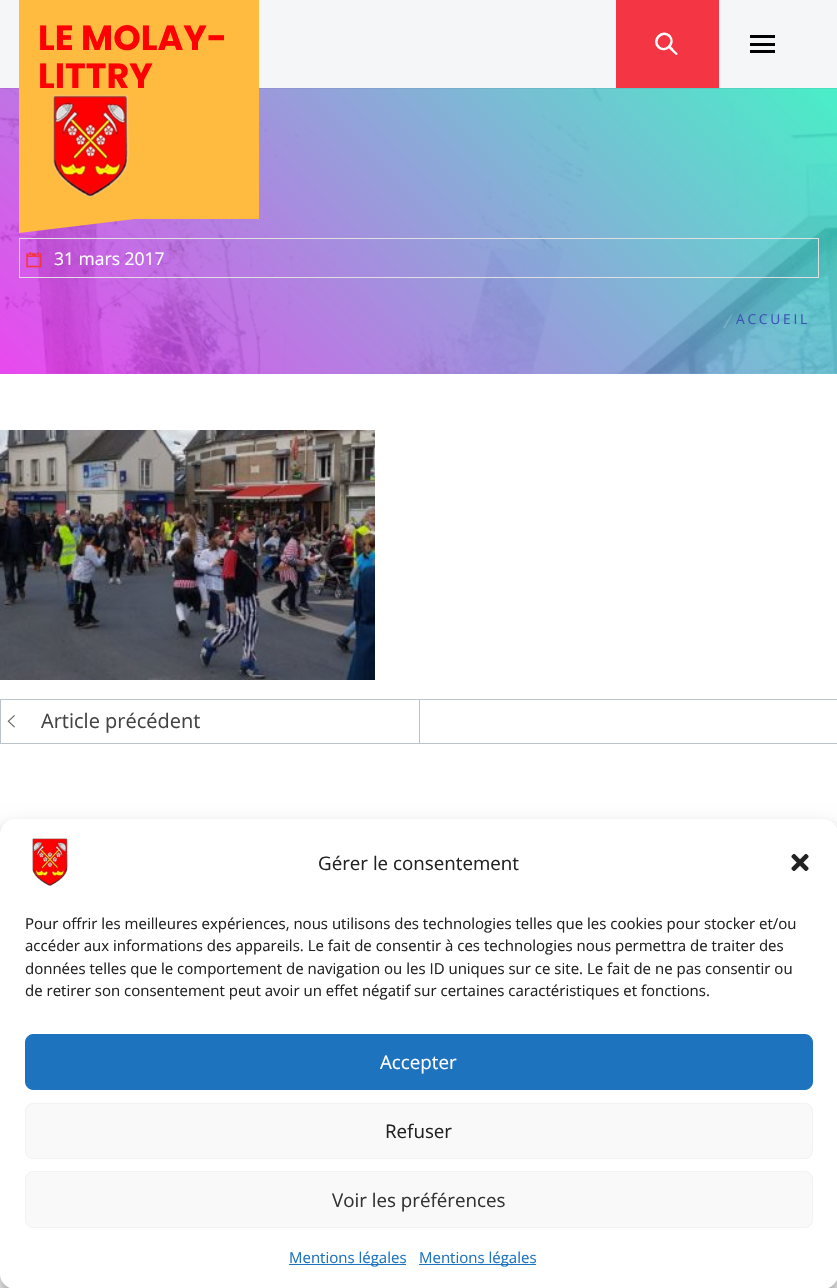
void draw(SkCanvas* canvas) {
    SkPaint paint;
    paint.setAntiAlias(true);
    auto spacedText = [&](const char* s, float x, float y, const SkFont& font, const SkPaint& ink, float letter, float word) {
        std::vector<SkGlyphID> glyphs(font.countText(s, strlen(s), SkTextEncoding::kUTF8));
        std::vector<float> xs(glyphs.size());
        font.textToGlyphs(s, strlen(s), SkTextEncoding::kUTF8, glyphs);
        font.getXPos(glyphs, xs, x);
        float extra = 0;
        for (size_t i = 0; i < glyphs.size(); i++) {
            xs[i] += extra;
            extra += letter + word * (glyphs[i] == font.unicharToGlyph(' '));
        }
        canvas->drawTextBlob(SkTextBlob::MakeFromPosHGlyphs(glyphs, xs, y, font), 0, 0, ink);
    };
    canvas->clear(0xFFFFFFFF);
    canvas->drawImageRect(SkImages::DeferredFromEncodedData(SkData::MakeFromFileName("img2.png")), SkRect::MakeXYWH(0, 88, 837, 286), SkSamplingOptions());
    {
        const SkColor colors[] = {0xCFE41EEB, 0xCF1EEBBB};
        const float stops[] = {0, 1};
        const SkPoint ends[] = {{138, 512}, {700, -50}};
        paint.setShader(SkGradientShader::MakeLinear(ends, colors, stops, 2, SkTileMode::kClamp));
        paint.setAlpha(255);
    }
    canvas->drawRect(SkRect::MakeXYWH(0, 88, 837, 286), paint);
    paint.setShader(nullptr);
    paint.setColor(0x0D000000);
    canvas->drawPath(SkPathBuilder().moveTo(0, 88).lineTo(0, 89).lineTo(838, 89).lineTo(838, 1).lineTo(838, 88).close().detach(), paint);
    paint.setColor(0xFFF4F6F8);
    canvas->drawRect(SkRect::MakeXYWH(0, 0, 837, 88), paint);
    paint.setColor(0xFFFFBB3F);
    canvas->drawRect(SkRect::MakeXYWH(19, 0, 240, 219), paint);
    canvas->drawPath(SkPathBuilder().moveTo(19, 58).lineTo(259, 29).lineTo(259, 204).lineTo(19, 233).close().detach(), paint);
    SkFont font1(fontMgr->matchFamilyStyle("Poppins", SkFontStyle::Bold()), 35);
    font1.setSubpixel(true);
    paint.setColor(0xFFFE0002);
    canvas->drawString("LE MOLAY-", 38, 50, font1, paint);
    canvas->drawString("LITTRY", 38, 88, font1, paint);
    canvas->drawImageRect(SkImages::DeferredFromEncodedData(SkData::MakeFromFileName("img1.png")), SkRect::MakeXYWH(52, 94, 77, 104), SkSamplingOptions());
    paint.setColor(0xFFF33544);
    canvas->drawRect(SkRect::MakeXYWH(616, 0, 103, 88), paint);
    paint.setColor(0xFFFFFFFF);
    canvas->drawPath(SkPathBuilder().moveTo(675.5f, 54.5f).lineTo(669.5f, 49).cubicTo(669, 48.5f, 668, 47.5f, 668, 46.5f).cubicTo(669, 43.5f, 673.5f, 49, 673.5f, 49.5f).lineTo(677.5f, 53.5f).cubicTo(678, 54.5f, 676.5f, 55.5f, 675.5f, 54.5f).close().detach(), paint);
    paint.setStyle(SkPaint::kStroke_Style);
    paint.setStrokeWidth(2.5f);
    canvas->drawPath(SkPathBuilder().moveTo(658.5f, 47).cubicTo(651.5f, 40, 662.5f, 29, 669.5f, 36).cubicTo(676, 43, 665.5f, 53.5f, 658.5f, 47).close().detach(), paint);
    paint.setStyle(SkPaint::kFill_Style);
    paint.setColor(0xFF000000);
    canvas->drawRect(SkRect::MakeXYWH(750, 43, 25, 3), paint);
    canvas->drawRect(SkRect::MakeXYWH(750, 35, 25, 3), paint);
    canvas->drawRect(SkRect::MakeXYWH(750, 50, 25, 3), paint);
    paint.setStyle(SkPaint::kStroke_Style);
    paint.setStrokeWidth(1);
    paint.setColor(0xFFE0E0E0);
    canvas->drawRect(SkRect::MakeXYWH(19.5f, 238.5f, 799, 39), paint);
    canvas->drawImageRect(SkImages::DeferredFromEncodedData(SkData::MakeFromFileName("img3.png")), SkRect::MakeXYWH(26, 252, 16, 16), SkSamplingOptions());
    SkFont font2(fontMgr->matchFamilyStyle("Open Sans", SkFontStyle::Normal()), 17.5f);
    font2.setSubpixel(true);
    paint.setStyle(SkPaint::kFill_Style);
    paint.setColor(0xFFFFFFFF);
    canvas->drawString("31 mars 2017", 54, 265, font2, paint);
    paint.setColor(0x33FFFFFF);
    canvas->drawPath(SkPathBuilder().moveTo(731.5f, 314).lineTo(732.5f, 314.5f).lineTo(724.5f, 328.5f).lineTo(723, 328).close().detach(), paint);
    SkFont font3(fontMgr->matchFamilyStyle("Open Sans", SkFontStyle::Normal()), 13.75f);
    font3.setSubpixel(true);
    paint.setColor(0xFF3F51B5);
    spacedText("ACCUEIL", 736, 324, font3, paint, 2.75f, 0);
    canvas->drawImageRect(SkImages::DeferredFromEncodedData(SkData::MakeFromFileName("img4.png")), SkRect::MakeXYWH(0, 430, 375, 250), SkSamplingOptions());
    paint.setStyle(SkPaint::kStroke_Style);
    paint.setColor(0xFFBAC2CC);
    canvas->drawRect(SkRect::MakeXYWH(0.5f, 699.5f, 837, 44), paint);
    canvas->drawImageRect(SkImages::DeferredFromEncodedData(SkData::MakeFromFileName("img5.png")), SkRect::MakeXYWH(7, 715, 8, 13), SkSamplingOptions());
    SkFont font4(fontMgr->matchFamilyStyle("Open Sans", SkFontStyle::Normal()), 20);
    font4.setSubpixel(true);
    paint.setStyle(SkPaint::kFill_Style);
    paint.setColor(0xFF434343);
    canvas->drawString("Article précédent", 41, 728, font4, paint);
    paint.setColor(0xFFBAC2CC);
    canvas->drawRect(SkRect::MakeXYWH(419, 700, 1, 43), paint);
    paint.setColor(0x3B000000);
    paint.setMaskFilter(SkMaskFilter::MakeBlur(kNormal_SkBlurStyle, 4));
    canvas->drawRoundRect(SkRect::MakeXYWH(0, 826, 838, 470), 15, 15, paint);
    paint.setMaskFilter(nullptr);
    paint.setColor(0x30000000);
    paint.setMaskFilter(SkMaskFilter::MakeBlur(kNormal_SkBlurStyle, 12.5f));
    canvas->drawRoundRect(SkRect::MakeXYWH(0, 831, 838, 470), 15, 15, paint);
    paint.setMaskFilter(nullptr);
    paint.setColor(0xFFFFFFFF);
    canvas->drawRoundRect(SkRect::MakeXYWH(0, 819, 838, 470), 15, 15, paint);
    canvas->drawImageRect(SkImages::DeferredFromEncodedData(SkData::MakeFromFileName("img6.png")), SkRect::MakeXYWH(32, 838, 36, 48), SkSamplingOptions());
    SkFont font5(fontMgr->matchFamilyStyle("Open Sans", SkFontStyle::Normal()), 18.75f);
    font5.setSubpixel(true);
    paint.setColor(0xFF222222);
    canvas->drawString("Gérer le consentement", 318, 870, font5, paint);
    canvas->drawImageRect(SkImages::DeferredFromEncodedData(SkData::MakeFromFileName("img7.png")), SkRect::MakeXYWH(791, 853, 18, 18), SkSamplingOptions());
    SkFont font6(fontMgr->matchFamilyStyle("Open Sans", SkFontStyle::Normal()), 15);
    font6.setSubpixel(true);
    canvas->drawString("Pour offrir les meilleures expériences, nous utilisons des technologies telles que les cookies pour stocker et/ou", 25, 929, font6, paint);
    canvas->drawString("accéder aux informations des appareils. Le fait de consentir à ces technologies nous permettra de traiter des", 25, 951, font6, paint);
    canvas->drawString("données telles que le comportement de navigation ou les ID uniques sur ce site. Le fait de ne pas consentir ou", 25, 974, font6, paint);
    canvas->drawString("de retirer son consentement peut avoir un effet négatif sur certaines caractéristiques et fonctions.", 25, 996, font6, paint);
    paint.setColor(0xFF1E73BE);
    canvas->drawRoundRect(SkRect::MakeXYWH(25.5f, 1034.5f, 787, 55), 7.5f, 7.5f, paint);
    paint.setStyle(SkPaint::kStroke_Style);
    canvas->drawRoundRect(SkRect::MakeXYWH(25.5f, 1034.5f, 787, 55), 7.5f, 7.5f, paint);
    paint.setStyle(SkPaint::kFill_Style);
    paint.setColor(0xFFFFFFFF);
    canvas->drawString("Accepter", 380, 1069, font5, paint);
    paint.setColor(0xFFF9F9F9);
    canvas->drawRoundRect(SkRect::MakeXYWH(25.5f, 1103.5f, 787, 55), 7.5f, 7.5f, paint);
    paint.setStyle(SkPaint::kStroke_Style);
    paint.setColor(0xFFF2F2F2);
    canvas->drawRoundRect(SkRect::MakeXYWH(25.5f, 1103.5f, 787, 55), 7.5f, 7.5f, paint);
    paint.setStyle(SkPaint::kFill_Style);
    paint.setColor(0xFF222222);
    canvas->drawString("Refuser", 385, 1138, font5, paint);
    paint.setColor(0xFFF9F9F9);
    canvas->drawRoundRect(SkRect::MakeXYWH(25.5f, 1171.5f, 787, 56), 7.5f, 7.5f, paint);
    paint.setStyle(SkPaint::kStroke_Style);
    paint.setColor(0xFFF2F2F2);
    canvas->drawRoundRect(SkRect::MakeXYWH(25.5f, 1171.5f, 787, 56), 7.5f, 7.5f, paint);
    paint.setStyle(SkPaint::kFill_Style);
    paint.setColor(0xFF333333);
    canvas->drawString("Voir les préférences", 332, 1207, font5, paint);
    paint.setColor(0xFF1E73BE);
    canvas->drawRect(SkRect::MakeXYWH(289, 1264, 117, 1), paint);
    canvas->drawString("Mentions légales", 289, 1263, font6, paint);
    canvas->drawRect(SkRect::MakeXYWH(419, 1264, 117, 1), paint);
    canvas->drawString("Mentions légales", 419, 1263, font6, paint);
}
